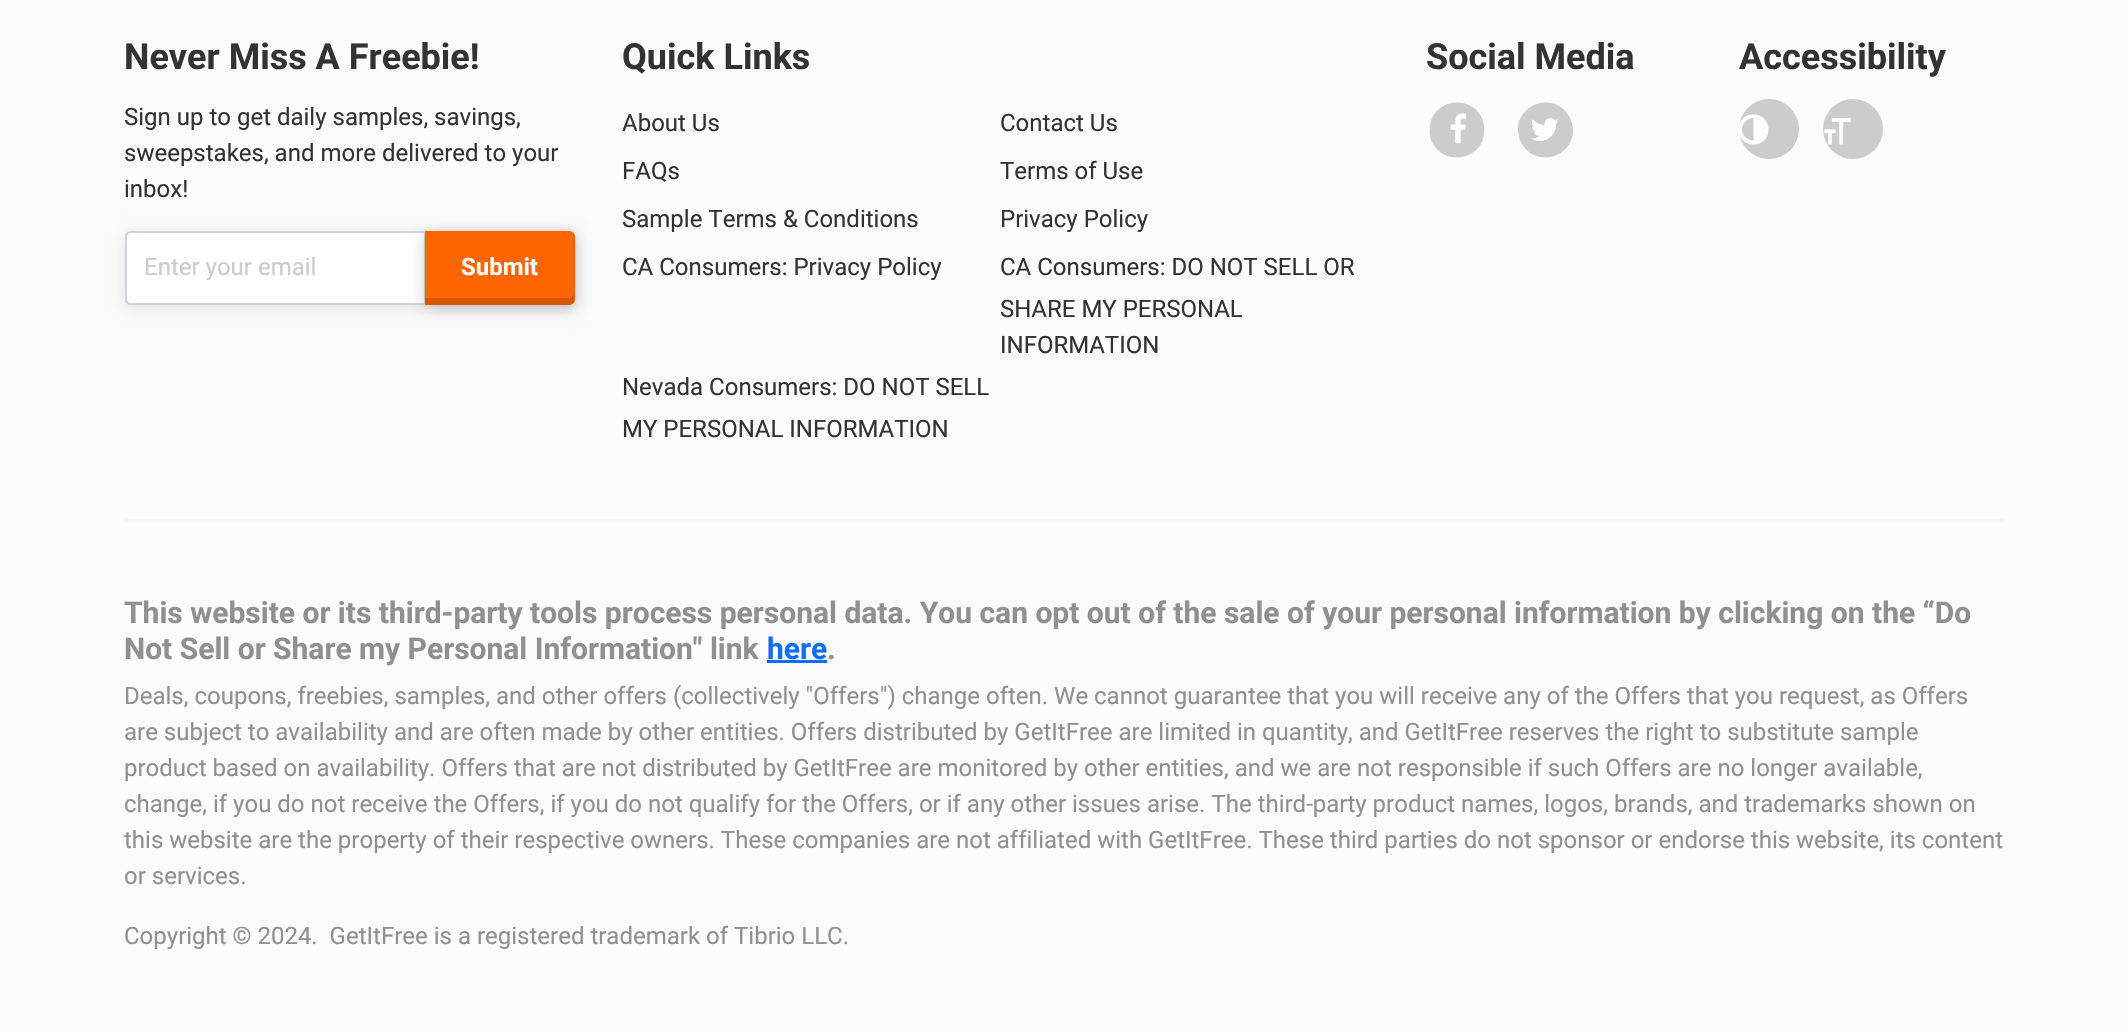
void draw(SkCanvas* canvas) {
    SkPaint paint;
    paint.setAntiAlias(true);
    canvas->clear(0xFFFCFCFC);
    SkFont font1(fontMgr->matchFamilyStyle("Roboto", SkFontStyle::Bold()), 36);
    font1.setSubpixel(true);
    paint.setColor(0xFF333333);
    canvas->drawString("Never Miss A Freebie!", 124, 69, font1, paint);
    SkFont font2(fontMgr->matchFamilyStyle("Roboto", SkFontStyle::Normal()), 24);
    font2.setSubpixel(true);
    canvas->drawString("Sign up to get daily samples, savings,", 124, 125, font2, paint);
    canvas->drawString("sweepstakes, and more delivered to your", 124, 161, font2, paint);
    canvas->drawString("inbox!", 124, 197, font2, paint);
    paint.setColor(0x1A000000);
    paint.setMaskFilter(SkMaskFilter::MakeBlur(kNormal_SkBlurStyle, 7.5f));
    canvas->drawRect(SkRect::MakeXYWH(125, 234, 450, 74), paint);
    paint.setMaskFilter(nullptr);
    paint.setColor(0xFFFFFFFF);
    canvas->drawPath(SkPathBuilder().moveTo(131, 232).lineTo(425, 232).lineTo(425, 304).lineTo(131, 304).cubicTo(128, 304, 126, 302, 126, 299).lineTo(126, 237).cubicTo(126, 234, 128, 232, 131, 232).close().detach(), paint);
    paint.setStyle(SkPaint::kStroke_Style);
    paint.setStrokeWidth(2);
    paint.setColor(0xFFCED4DA);
    canvas->drawPath(SkPathBuilder().moveTo(131, 232).lineTo(425, 232).lineTo(425, 304).lineTo(131, 304).cubicTo(128, 304, 126, 302, 126, 299).lineTo(126, 237).cubicTo(126, 234, 128, 232, 131, 232).close().detach(), paint);
    paint.setStyle(SkPaint::kFill_Style);
    paint.setColor(0xFFCCCCCC);
    canvas->drawString("Enter your email", 144, 275, font2, paint);
    paint.setColor(0x33000000);
    paint.setMaskFilter(SkMaskFilter::MakeBlur(kNormal_SkBlurStyle, 7.5f));
    canvas->drawRoundRect(SkRect::MakeXYWH(425, 234, 150, 74), 6, 6, paint);
    paint.setMaskFilter(nullptr);
    paint.setColor(0xFFFF6600);
    canvas->drawPath(SkPathBuilder().moveTo(425, 231).lineTo(569, 231).cubicTo(572.5f, 231, 575, 233.5f, 575, 237).lineTo(575, 299).cubicTo(575, 302.5f, 572.5f, 305, 569, 305).lineTo(425, 305).close().detach(), paint);
    paint.setColor(0x29000000);
    canvas->drawPath(SkPathBuilder().moveTo(425, 298).lineTo(425, 305).lineTo(569, 305).cubicTo(572, 305, 575, 302, 575, 299).lineTo(575, 237).cubicTo(575, 236, 575, 235, 574, 234).lineTo(574, 292).cubicTo(574, 296, 572, 298, 568, 298).close().detach(), paint);
    SkFont font3(fontMgr->matchFamilyStyle("Roboto", SkFontStyle::Bold()), 24);
    font3.setSubpixel(true);
    paint.setColor(0xFFFFFFFF);
    canvas->drawString("Submit", 461, 275, font3, paint);
    paint.setColor(0xFF333333);
    canvas->drawString("Quick Links", 622, 69, font1, paint);
    canvas->drawString("About Us", 622, 131, font2, paint);
    canvas->drawString("Contact Us", 1000, 131, font2, paint);
    canvas->drawString("FAQs", 622, 179, font2, paint);
    canvas->drawString("Terms of Use", 1000, 179, font2, paint);
    canvas->drawString("Sample Terms & Conditions", 622, 227, font2, paint);
    canvas->drawString("Privacy Policy", 1000, 227, font2, paint);
    canvas->drawString("CA Consumers: Privacy Policy", 622, 275, font2, paint);
    canvas->drawString("CA Consumers: DO NOT SELL OR", 1000, 275, font2, paint);
    canvas->drawString("SHARE MY PERSONAL", 1000, 317, font2, paint);
    canvas->drawString("INFORMATION", 1000, 353, font2, paint);
    canvas->drawString("Nevada Consumers: DO NOT SELL", 622, 395, font2, paint);
    canvas->drawString("MY PERSONAL INFORMATION", 622, 437, font2, paint);
    canvas->drawString("Social Media", 1426, 69, font1, paint);
    paint.setColor(0xFFCCCCCC);
    canvas->drawPath(SkPathBuilder().moveTo(1481, 116).cubicTo(1483, 121, 1485, 127, 1484, 132).cubicTo(1483, 159, 1447, 167, 1433, 144).cubicTo(1430, 139, 1429, 134, 1430, 128).cubicTo(1431, 101, 1467, 93, 1481, 116).close().detach(), paint);
    canvas->drawImageRect(SkImages::DeferredFromEncodedData(SkData::MakeFromFileName("img1.png")), SkRect::MakeXYWH(1450, 113, 17, 31), SkSamplingOptions());
    canvas->drawPath(SkPathBuilder().moveTo(1569, 116).cubicTo(1572, 121, 1573, 127, 1573, 132).cubicTo(1571, 159, 1535, 167, 1522, 144).cubicTo(1519, 139, 1518, 134, 1518, 128).cubicTo(1520, 101, 1556, 93, 1569, 116).close().detach(), paint);
    canvas->drawImageRect(SkImages::DeferredFromEncodedData(SkData::MakeFromFileName("img2.png")), SkRect::MakeXYWH(1531, 118, 28, 23), SkSamplingOptions());
    paint.setColor(0xFF333333);
    canvas->drawString("Accessibility", 1739, 69, font1, paint);
    paint.setColor(0xFFCCCCCC);
    canvas->drawCircle(1769, 129, 30, paint);
    paint.setColor(0xFFFFFFFF);
    canvas->drawPath(SkPathBuilder().moveTo(1753.5f, 114.5f).cubicTo(1733.5f, 114.5f, 1733.5f, 144.5f, 1753.5f, 144.5f).cubicTo(1773.5f, 144.5f, 1773.5f, 114.5f, 1753.5f, 114.5f).close().moveTo(1742, 129.5f).cubicTo(1742, 123, 1747.5f, 118, 1753.5f, 118).lineTo(1753.5f, 140.5f).cubicTo(1747.5f, 140.5f, 1742, 135.5f, 1742, 129.5f).close().detach(), paint);
    paint.setColor(0xFFCCCCCC);
    canvas->drawCircle(1853, 129, 30, paint);
    canvas->drawImageRect(SkImages::DeferredFromEncodedData(SkData::MakeFromFileName("img3.png")), SkRect::MakeXYWH(1824, 118, 27, 27), SkSamplingOptions());
    paint.setColor(0xFFF6F6F6);
    canvas->drawRect(SkRect::MakeXYWH(125, 519, 1879, 3), paint);
    SkFont font4(fontMgr->matchFamilyStyle("Roboto", SkFontStyle::Bold()), 30);
    font4.setSubpixel(true);
    paint.setColor(0xFF909090);
    canvas->drawString("This website or its third-party tools process personal data. You can opt out of the sale of your personal information by clicking on the “Do", 124, 623, font4, paint);
    canvas->drawString("Not Sell or Share my Personal Information\" link", 124, 659, font4, paint);
    paint.setColor(0xFF0D6EFD);
    canvas->drawString("here", 767, 659, font4, paint);
    paint.setColor(0xFF909090);
    canvas->drawString(".", 827, 659, font4, paint);
    paint.setColor(0xFF0D6EFD);
    canvas->drawRect(SkRect::MakeXYWH(767, 660, 60, 3), paint);
    paint.setColor(0xFF909090);
    canvas->drawString("Deals, coupons, freebies, samples, and other offers (collectively \"Offers\") change often. We cannot guarantee that you will receive any of the Offers that you request, as Offers", 124, 704, font2, paint);
    canvas->drawString("are subject to availability and are often made by other entities. Offers distributed by GetItFree are limited in quantity, and GetItFree reserves the right to substitute sample", 124, 740, font2, paint);
    canvas->drawString("product based on availability. Offers that are not distributed by GetItFree are monitored by other entities, and we are not responsible if such Offers are no longer available,", 124, 776, font2, paint);
    canvas->drawString("change, if you do not receive the Offers, if you do not qualify for the Offers, or if any other issues arise. The third-party product names, logos, brands, and trademarks shown on", 124, 812, font2, paint);
    canvas->drawString("this website are the property of their respective owners. These companies are not affiliated with GetItFree. These third parties do not sponsor or endorse this website, its content", 124, 848, font2, paint);
    canvas->drawString("or services.", 124, 884, font2, paint);
    canvas->drawString("Copyright © 2024.  GetItFree is a registered trademark of Tibrio LLC.", 124, 944, font2, paint);
}
